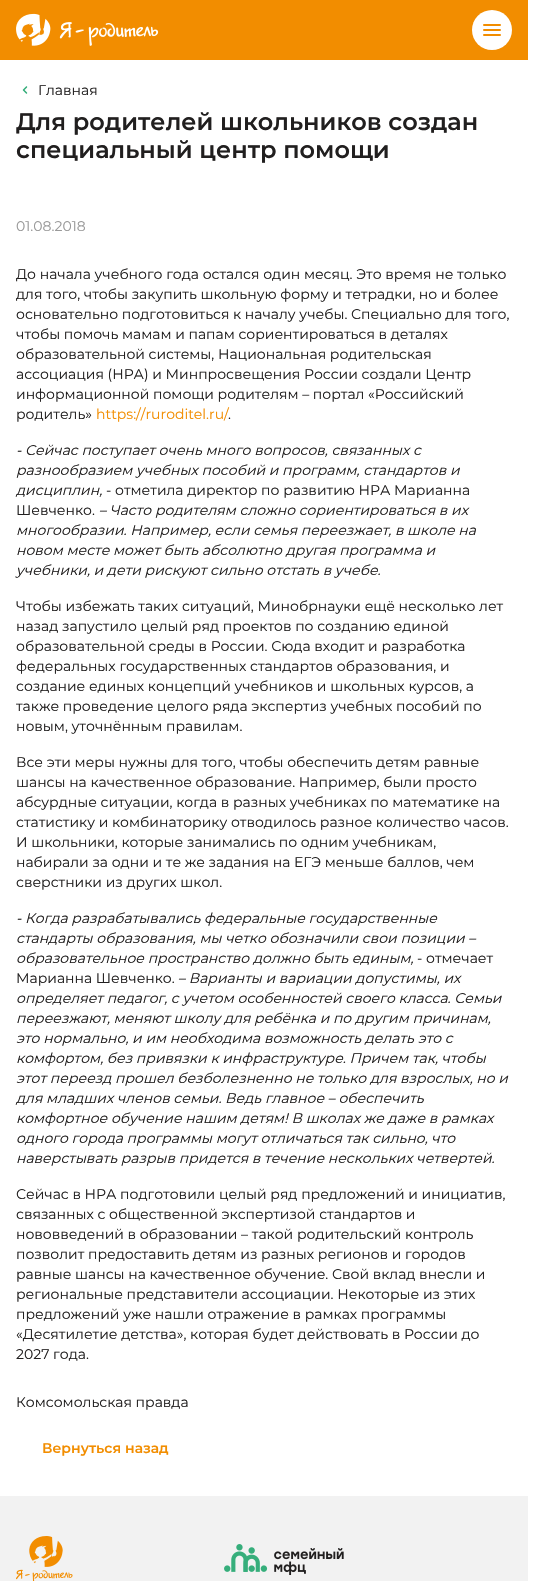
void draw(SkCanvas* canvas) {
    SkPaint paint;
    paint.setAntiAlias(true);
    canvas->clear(0xFFFFFFFF);
    paint.setColor(0xFFF28D00);
    canvas->drawRect(SkRect::MakeXYWH(0, 0, 528, 60), paint);
    canvas->drawImageRect(SkImages::DeferredFromEncodedData(SkData::MakeFromFileName("img1.png")), SkRect::MakeXYWH(16, 13, 143, 33), SkSamplingOptions());
    paint.setColor(0xFFFFFFFF);
    canvas->drawCircle(492, 30, 20, paint);
    paint.setColor(0xFFF28D00);
    canvas->drawRoundRect(SkRect::MakeXYWH(483, 24, 18, 2), 1, 1, paint);
    canvas->drawRoundRect(SkRect::MakeXYWH(483, 29, 18, 2), 1, 1, paint);
    canvas->drawRoundRect(SkRect::MakeXYWH(483, 34, 18, 2), 1, 1, paint);
    canvas->drawImageRect(SkImages::DeferredFromEncodedData(SkData::MakeFromFileName("img2.png")), SkRect::MakeXYWH(22, 86, 6, 8), SkSamplingOptions());
    SkFont font1(fontMgr->matchFamilyStyle("Montserrat", SkFontStyle::Normal()), 14);
    font1.setSubpixel(true);
    paint.setColor(0xFF211F1F);
    canvas->drawString("Главная", 38, 95, font1, paint);
    SkFont font2(fontMgr->matchFamilyStyle("Montserrat", SkFontStyle(600, SkFontStyle::kNormal_Width, SkFontStyle::kUpright_Slant)), 24);
    font2.setSubpixel(true);
    canvas->drawString("Для родителей школьников создан", 16, 130, font2, paint);
    canvas->drawString("специальный центр помощи", 16, 158, font2, paint);
    paint.setColor(0xFF999999);
    canvas->drawString("01.08.2018", 16, 231, font1, paint);
    paint.setColor(0xFF211F1F);
    canvas->drawString("До начала учебного года остался один месяц. Это время не только", 16, 279, font1, paint);
    canvas->drawString("для того, чтобы закупить школьную форму и тетрадки, но и более", 16, 299, font1, paint);
    canvas->drawString("основательно подготовиться к началу учебы. Специально для того,", 16, 319, font1, paint);
    canvas->drawString("чтобы помочь мамам и папам сориентироваться в деталях", 16, 339, font1, paint);
    canvas->drawString("образовательной системы, Национальная родительская", 16, 359, font1, paint);
    canvas->drawString("ассоциация (НРА) и Минпросвещения России создали Центр", 16, 379, font1, paint);
    canvas->drawString("информационной помощи родителям – портал «Российский", 16, 399, font1, paint);
    canvas->drawString("родитель»", 16, 419, font1, paint);
    paint.setColor(0xFFF28D00);
    canvas->drawString("https://ruroditel.ru/", 96, 419, font1, paint);
    paint.setColor(0xFF211F1F);
    canvas->drawString(".", 228, 419, font1, paint);
    SkFont font3(fontMgr->matchFamilyStyle("Montserrat", SkFontStyle::Italic()), 14);
    font3.setSubpixel(true);
    canvas->drawString("- Сейчас поступает очень много вопросов, связанных с", 16, 455, font3, paint);
    canvas->drawString("разнообразием учебных пособий и программ, стандартов и", 16, 475, font3, paint);
    canvas->drawString("дисциплин,", 16, 495, font3, paint);
    canvas->drawString("- отметила директор по развитию НРА Марианна", 106, 495, font1, paint);
    canvas->drawString("Шевченко.", 16, 515, font1, paint);
    canvas->drawString("– Часто родителям сложно сориентироваться в их", 99, 515, font3, paint);
    canvas->drawString("многообразии. Например, если семья переезжает, в школе на", 16, 535, font3, paint);
    canvas->drawString("новом месте может быть абсолютно другая программа и", 16, 555, font3, paint);
    canvas->drawString("учебники, и дети рискуют сильно отстать в учебе.", 16, 575, font3, paint);
    canvas->drawString("Чтобы избежать таких ситуаций, Минобрнауки ещё несколько лет", 16, 611, font1, paint);
    canvas->drawString("назад запустило целый ряд проектов по созданию единой", 16, 631, font1, paint);
    canvas->drawString("образовательной среды в России. Сюда входит и разработка", 16, 651, font1, paint);
    canvas->drawString("федеральных государственных стандартов образования, и", 16, 671, font1, paint);
    canvas->drawString("создание единых концепций учебников и школьных курсов, а", 16, 691, font1, paint);
    canvas->drawString("также проведение целого ряда экспертиз учебных пособий по", 16, 711, font1, paint);
    canvas->drawString("новым, уточнённым правилам.", 16, 731, font1, paint);
    canvas->drawString("Все эти меры нужны для того, чтобы обеспечить детям равные", 16, 767, font1, paint);
    canvas->drawString("шансы на качественное образование. Например, были просто", 16, 787, font1, paint);
    canvas->drawString("абсурдные ситуации, когда в разных учебниках по математике на", 16, 807, font1, paint);
    canvas->drawString("статистику и комбинаторику отводилось разное количество часов.", 16, 827, font1, paint);
    canvas->drawString("И школьники, которые занимались по одним учебникам,", 16, 847, font1, paint);
    canvas->drawString("набирали за одни и те же задания на ЕГЭ меньше баллов, чем", 16, 867, font1, paint);
    canvas->drawString("сверстники из других школ.", 16, 887, font1, paint);
    canvas->drawString("- Когда разрабатывались федеральные государственные", 16, 923, font3, paint);
    canvas->drawString("стандарты образования, мы четко обозначили свои позиции –", 16, 943, font3, paint);
    canvas->drawString("образовательное пространство должно быть единым,", 16, 963, font3, paint);
    canvas->drawString("- отмечает", 417, 963, font1, paint);
    canvas->drawString("Марианна Шевченко.", 16, 983, font1, paint);
    canvas->drawString("– Варианты и вариации допустимы, их", 178, 983, font3, paint);
    canvas->drawString("определяет педагог, с учетом особенностей своего класса. Семьи", 16, 1003, font3, paint);
    canvas->drawString("переезжают, меняют школу для ребёнка и по другим причинам,", 16, 1023, font3, paint);
    canvas->drawString("это нормально, и им необходима возможность делать это с", 16, 1043, font3, paint);
    canvas->drawString("комфортом, без привязки к инфраструктуре. Причем так, чтобы", 16, 1063, font3, paint);
    canvas->drawString("этот переезд прошел безболезненно не только для взрослых, но и", 16, 1083, font3, paint);
    canvas->drawString("для младших членов семьи. Ведь главное – обеспечить", 16, 1103, font3, paint);
    canvas->drawString("комфортное обучение нашим детям! В школах же даже в рамках", 16, 1123, font3, paint);
    canvas->drawString("одного города программы могут отличаться так сильно, что", 16, 1143, font3, paint);
    canvas->drawString("наверстывать разрыв придется в течение нескольких четвертей.", 16, 1163, font3, paint);
    canvas->drawString("Сейчас в НРА подготовили целый ряд предложений и инициатив,", 16, 1199, font1, paint);
    canvas->drawString("связанных с общественной экспертизой стандартов и", 16, 1219, font1, paint);
    canvas->drawString("нововведений в образовании – такой родительский контроль", 16, 1239, font1, paint);
    canvas->drawString("позволит предоставить детям из разных регионов и городов", 16, 1259, font1, paint);
    canvas->drawString("равные шансы на качественное обучение. Свой вклад внесли и", 16, 1279, font1, paint);
    canvas->drawString("региональные представители ассоциации. Некоторые из этих", 16, 1299, font1, paint);
    canvas->drawString("предложений уже нашли отражение в рамках программы", 16, 1319, font1, paint);
    canvas->drawString("«Десятилетие детства», которая будет действовать в России до", 16, 1339, font1, paint);
    canvas->drawString("2027 года.", 16, 1359, font1, paint);
    canvas->drawString("Комсомольская правда", 16, 1407, font1, paint);
    SkFont font4(fontMgr->matchFamilyStyle("Montserrat", SkFontStyle(600, SkFontStyle::kNormal_Width, SkFontStyle::kUpright_Slant)), 14);
    font4.setSubpixel(true);
    paint.setColor(0xFFF28D00);
    canvas->drawString("Вернуться назад", 42, 1453, font4, paint);
    paint.setColor(0xFFF2F2F2);
    canvas->drawRect(SkRect::MakeXYWH(0, 1496, 528, 85), paint);
    canvas->drawImageRect(SkImages::DeferredFromEncodedData(SkData::MakeFromFileName("img3.png")), SkRect::MakeXYWH(16, 1536, 57, 45), SkSamplingOptions());
    canvas->drawImageRect(SkImages::DeferredFromEncodedData(SkData::MakeFromFileName("img4.png")), SkRect::MakeXYWH(224, 1544, 120, 31), SkSamplingOptions());
}
